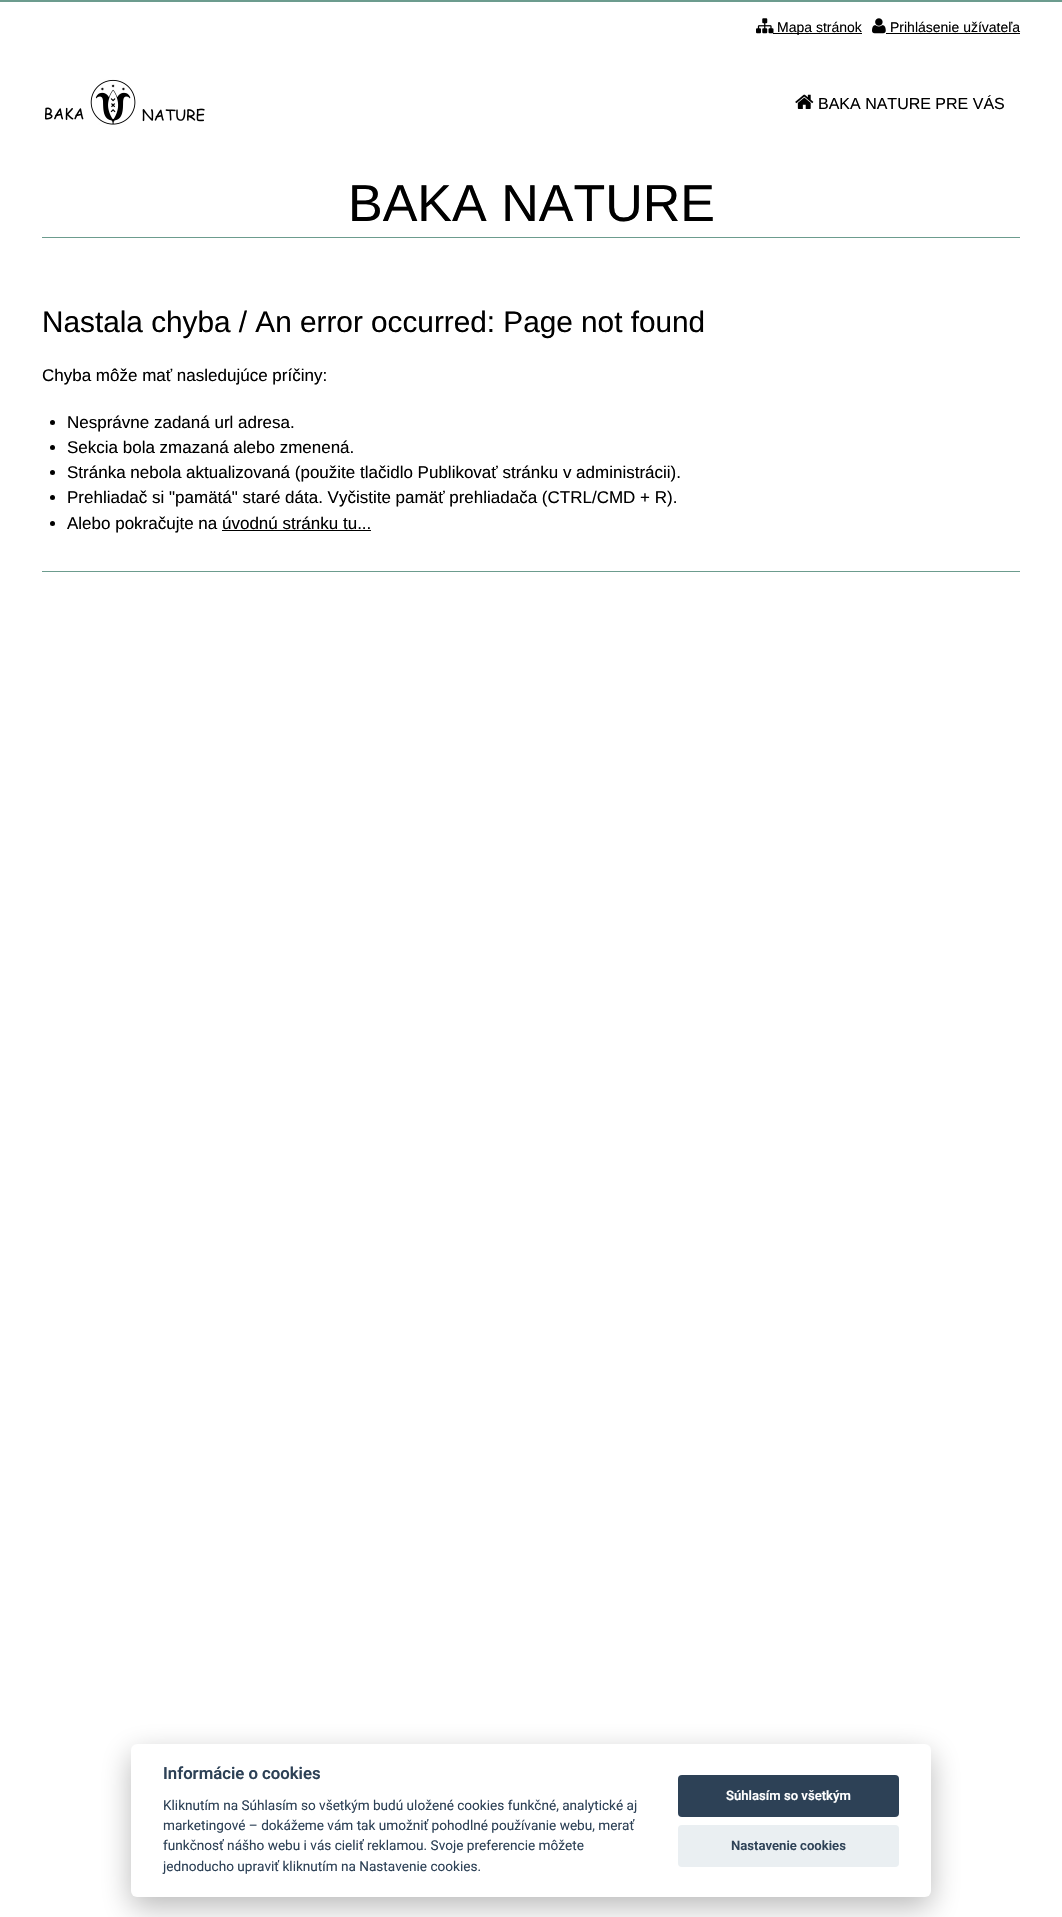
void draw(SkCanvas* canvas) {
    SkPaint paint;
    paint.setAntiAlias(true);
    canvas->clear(0xFFFFFFFF);
    paint.setColor(0xFF6C9C8E);
    canvas->drawRect(SkRect::MakeXYWH(0, 0, 1062, 2), paint);
    canvas->drawImageRect(SkImages::DeferredFromEncodedData(SkData::MakeFromFileName("img1.png")), SkRect::MakeXYWH(756, 18, 18, 16), SkSamplingOptions());
    paint.setColor(0xFF000000);
    canvas->drawRect(SkRect::MakeXYWH(773, 33, 89, 1), paint);
    SkFont font1(fontMgr->matchFamilyStyle("Liberation Sans", SkFontStyle::Normal()), 14);
    font1.setSubpixel(true);
    canvas->drawString("Mapa stránok", 777, 32, font1, paint);
    canvas->drawImageRect(SkImages::DeferredFromEncodedData(SkData::MakeFromFileName("img2.png")), SkRect::MakeXYWH(872, 18, 14, 16), SkSamplingOptions());
    canvas->drawString("Prihlásenie užívateľa", 890, 32, font1, paint);
    canvas->drawRect(SkRect::MakeXYWH(886, 33, 134, 1), paint);
    canvas->drawImageRect(SkImages::DeferredFromEncodedData(SkData::MakeFromFileName("img3.png")), SkRect::MakeXYWH(45, 79, 160, 46), SkSamplingOptions());
    canvas->drawImageRect(SkImages::DeferredFromEncodedData(SkData::MakeFromFileName("img4.png")), SkRect::MakeXYWH(795, 94, 19, 15), SkSamplingOptions());
    SkFont font2(fontMgr->matchFamilyStyle("Liberation Sans", SkFontStyle::Normal()), 16);
    font2.setSubpixel(true);
    canvas->drawString("BAKA NATURE PRE VÁS", 818, 109, font2, paint);
    paint.setColor(0xFF6C9C8E);
    canvas->drawRect(SkRect::MakeXYWH(42, 237, 978, 1), paint);
    SkFont font3(fontMgr->matchFamilyStyle("Liberation Sans", SkFontStyle::Normal()), 52);
    font3.setSubpixel(true);
    paint.setColor(0xFF000000);
    canvas->drawString("BAKA NATURE", 348, 221, font3, paint);
    paint.setColor(0xFF6C9C8E);
    canvas->drawRect(SkRect::MakeXYWH(42, 571, 978, 1), paint);
    SkFont font4(fontMgr->matchFamilyStyle("Liberation Sans", SkFontStyle::Normal()), 29.75f);
    font4.setSubpixel(true);
    paint.setColor(0xFF000000);
    canvas->drawString("Nastala chyba / An error occurred: Page not found", 42, 332, font4, paint);
    SkFont font5(fontMgr->matchFamilyStyle("Liberation Sans", SkFontStyle::Normal()), 17);
    font5.setSubpixel(true);
    canvas->drawString("Chyba môže mať nasledujúce príčiny:", 42, 381, font5, paint);
    canvas->drawCircle(52.5f, 422.5f, 2.5f, paint);
    canvas->drawString("Nesprávne zadaná url adresa.", 67, 428, font5, paint);
    canvas->drawCircle(52.5f, 447.5f, 2.5f, paint);
    canvas->drawString("Sekcia bola zmazaná alebo zmenená.", 67, 453, font5, paint);
    canvas->drawCircle(52.5f, 472.5f, 2.5f, paint);
    canvas->drawString("Stránka nebola aktualizovaná (použite tlačidlo Publikovať stránku v administrácii).", 67, 478, font5, paint);
    canvas->drawCircle(52.5f, 497.5f, 2.5f, paint);
    canvas->drawString("Prehliadač si \"pamätá\" staré dáta. Vyčistite pamäť prehliadača (CTRL/CMD + R).", 67, 503, font5, paint);
    canvas->drawCircle(52.5f, 523.5f, 2.5f, paint);
    canvas->drawString("Alebo pokračujte na úvodnú stránku tu...", 67, 529, font5, paint);
    canvas->drawRect(SkRect::MakeXYWH(222, 530, 149, 1), paint);
    paint.setColor(0x47020203);
    paint.setMaskFilter(SkMaskFilter::MakeBlur(kNormal_SkBlurStyle, 15));
    canvas->drawRoundRect(SkRect::MakeXYWH(131, 1754, 800, 153), 6, 6, paint);
    paint.setMaskFilter(nullptr);
    paint.setColor(0xFFFFFFFF);
    canvas->drawRoundRect(SkRect::MakeXYWH(131, 1744, 800, 153), 6, 6, paint);
    SkFont font6(fontMgr->matchFamilyStyle("Roboto", SkFontStyle(600, SkFontStyle::kNormal_Width, SkFontStyle::kUpright_Slant)), 16.75f);
    font6.setSubpixel(true);
    paint.setColor(0xFF2D4156);
    canvas->drawString("Informácie o cookies", 163, 1779, font6, paint);
    SkFont font7(fontMgr->matchFamilyStyle("Roboto", SkFontStyle::Normal()), 13.6f);
    font7.setSubpixel(true);
    canvas->drawString("Kliknutím na Súhlasím so všetkým budú uložené cookies funkčné, analytické aj", 163, 1810, font7, paint);
    canvas->drawString("marketingové – dokážeme vám tak umožniť pohodlné používanie webu, merať", 163, 1830, font7, paint);
    canvas->drawString("funkčnosť nášho webu i vás cieliť reklamou. Svoje preferencie môžete", 163, 1850, font7, paint);
    canvas->drawString("jednoducho upraviť kliknutím na Nastavenie cookies.", 163, 1871, font7, paint);
    canvas->drawRoundRect(SkRect::MakeXYWH(678, 1775, 221, 42), 4, 4, paint);
    SkFont font8(fontMgr->matchFamilyStyle("Roboto", SkFontStyle(600, SkFontStyle::kNormal_Width, SkFontStyle::kUpright_Slant)), 13.1f);
    font8.setSubpixel(true);
    paint.setColor(0xFFFFFFFF);
    canvas->drawString("Súhlasím so všetkým", 726, 1800, font8, paint);
    paint.setColor(0xFFEAEFF2);
    canvas->drawRoundRect(SkRect::MakeXYWH(678, 1825, 221, 42), 4, 4, paint);
    paint.setColor(0xFF2D4156);
    canvas->drawString("Nastavenie cookies", 731, 1850, font8, paint);
}
